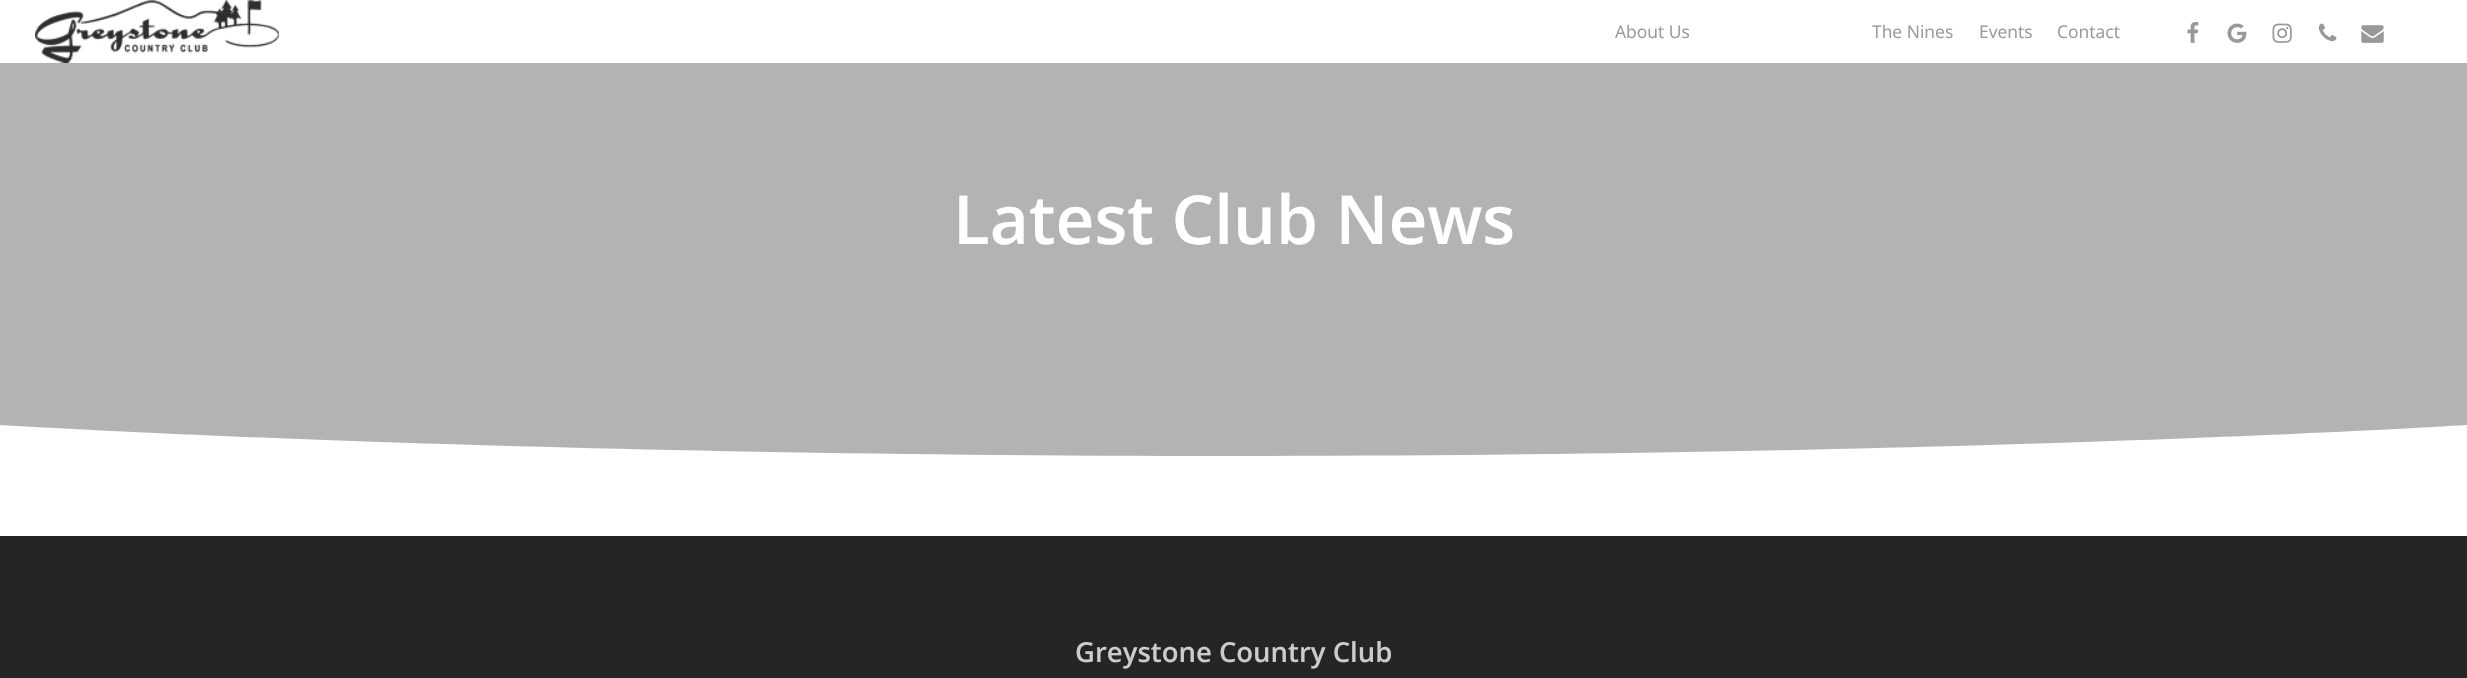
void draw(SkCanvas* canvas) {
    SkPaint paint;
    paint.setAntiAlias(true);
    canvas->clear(0xFFFFFFFF);
    canvas->drawImageRect(SkImages::DeferredFromEncodedData(SkData::MakeFromFileName("img1.png")), SkRect::MakeXYWH(35, 0, 244, 63), SkSamplingOptions());
    SkFont font1(fontMgr->matchFamilyStyle("Open Sans", SkFontStyle::Normal()), 17.5f);
    font1.setSubpixel(true);
    paint.setColor(0xFF999999);
    canvas->drawString("About Us", 1615, 38, font1, paint);
    canvas->drawString("The Nines", 1872, 38, font1, paint);
    canvas->drawString("Events", 1979, 38, font1, paint);
    canvas->drawString("Contact", 2057, 38, font1, paint);
    canvas->drawImageRect(SkImages::DeferredFromEncodedData(SkData::MakeFromFileName("img2.png")), SkRect::MakeXYWH(2187, 22, 12, 21), SkSamplingOptions());
    canvas->drawImageRect(SkImages::DeferredFromEncodedData(SkData::MakeFromFileName("img3.png")), SkRect::MakeXYWH(2227, 23, 20, 20), SkSamplingOptions());
    canvas->drawImageRect(SkImages::DeferredFromEncodedData(SkData::MakeFromFileName("img4.png")), SkRect::MakeXYWH(2272, 23, 20, 20), SkSamplingOptions());
    canvas->drawImageRect(SkImages::DeferredFromEncodedData(SkData::MakeFromFileName("img5.png")), SkRect::MakeXYWH(2318, 23, 19, 19), SkSamplingOptions());
    canvas->drawImageRect(SkImages::DeferredFromEncodedData(SkData::MakeFromFileName("img6.png")), SkRect::MakeXYWH(2361, 25, 23, 18), SkSamplingOptions());
    paint.setColor(0xFFB3B3B3);
    canvas->drawRect(SkRect::MakeXYWH(0, 63, 2467, 393), paint);
    SkFont font2(fontMgr->matchFamilyStyle("Open Sans", SkFontStyle(600, SkFontStyle::kNormal_Width, SkFontStyle::kUpright_Slant)), 67.5f);
    font2.setSubpixel(true);
    paint.setColor(0xFFFFFFFF);
    canvas->drawString("Latest Club News", 953, 244, font2, paint);
    canvas->drawPath(SkPathBuilder().moveTo(0, 425).cubicTo(0, 425, 493, 456, 1234, 456).cubicTo(1974, 456, 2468, 425, 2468, 425).lineTo(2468, 488).lineTo(0, 488).lineTo(0, 426).close().detach(), paint);
    paint.setColor(0xFF252525);
    canvas->drawRect(SkRect::MakeXYWH(0, 536, 2467, 142), paint);
    SkFont font3(fontMgr->matchFamilyStyle("Open Sans", SkFontStyle(600, SkFontStyle::kNormal_Width, SkFontStyle::kUpright_Slant)), 27.5f);
    font3.setSubpixel(true);
    paint.setColor(0xFFCCCCCC);
    canvas->drawString("Greystone Country Club", 1075, 662, font3, paint);
}
